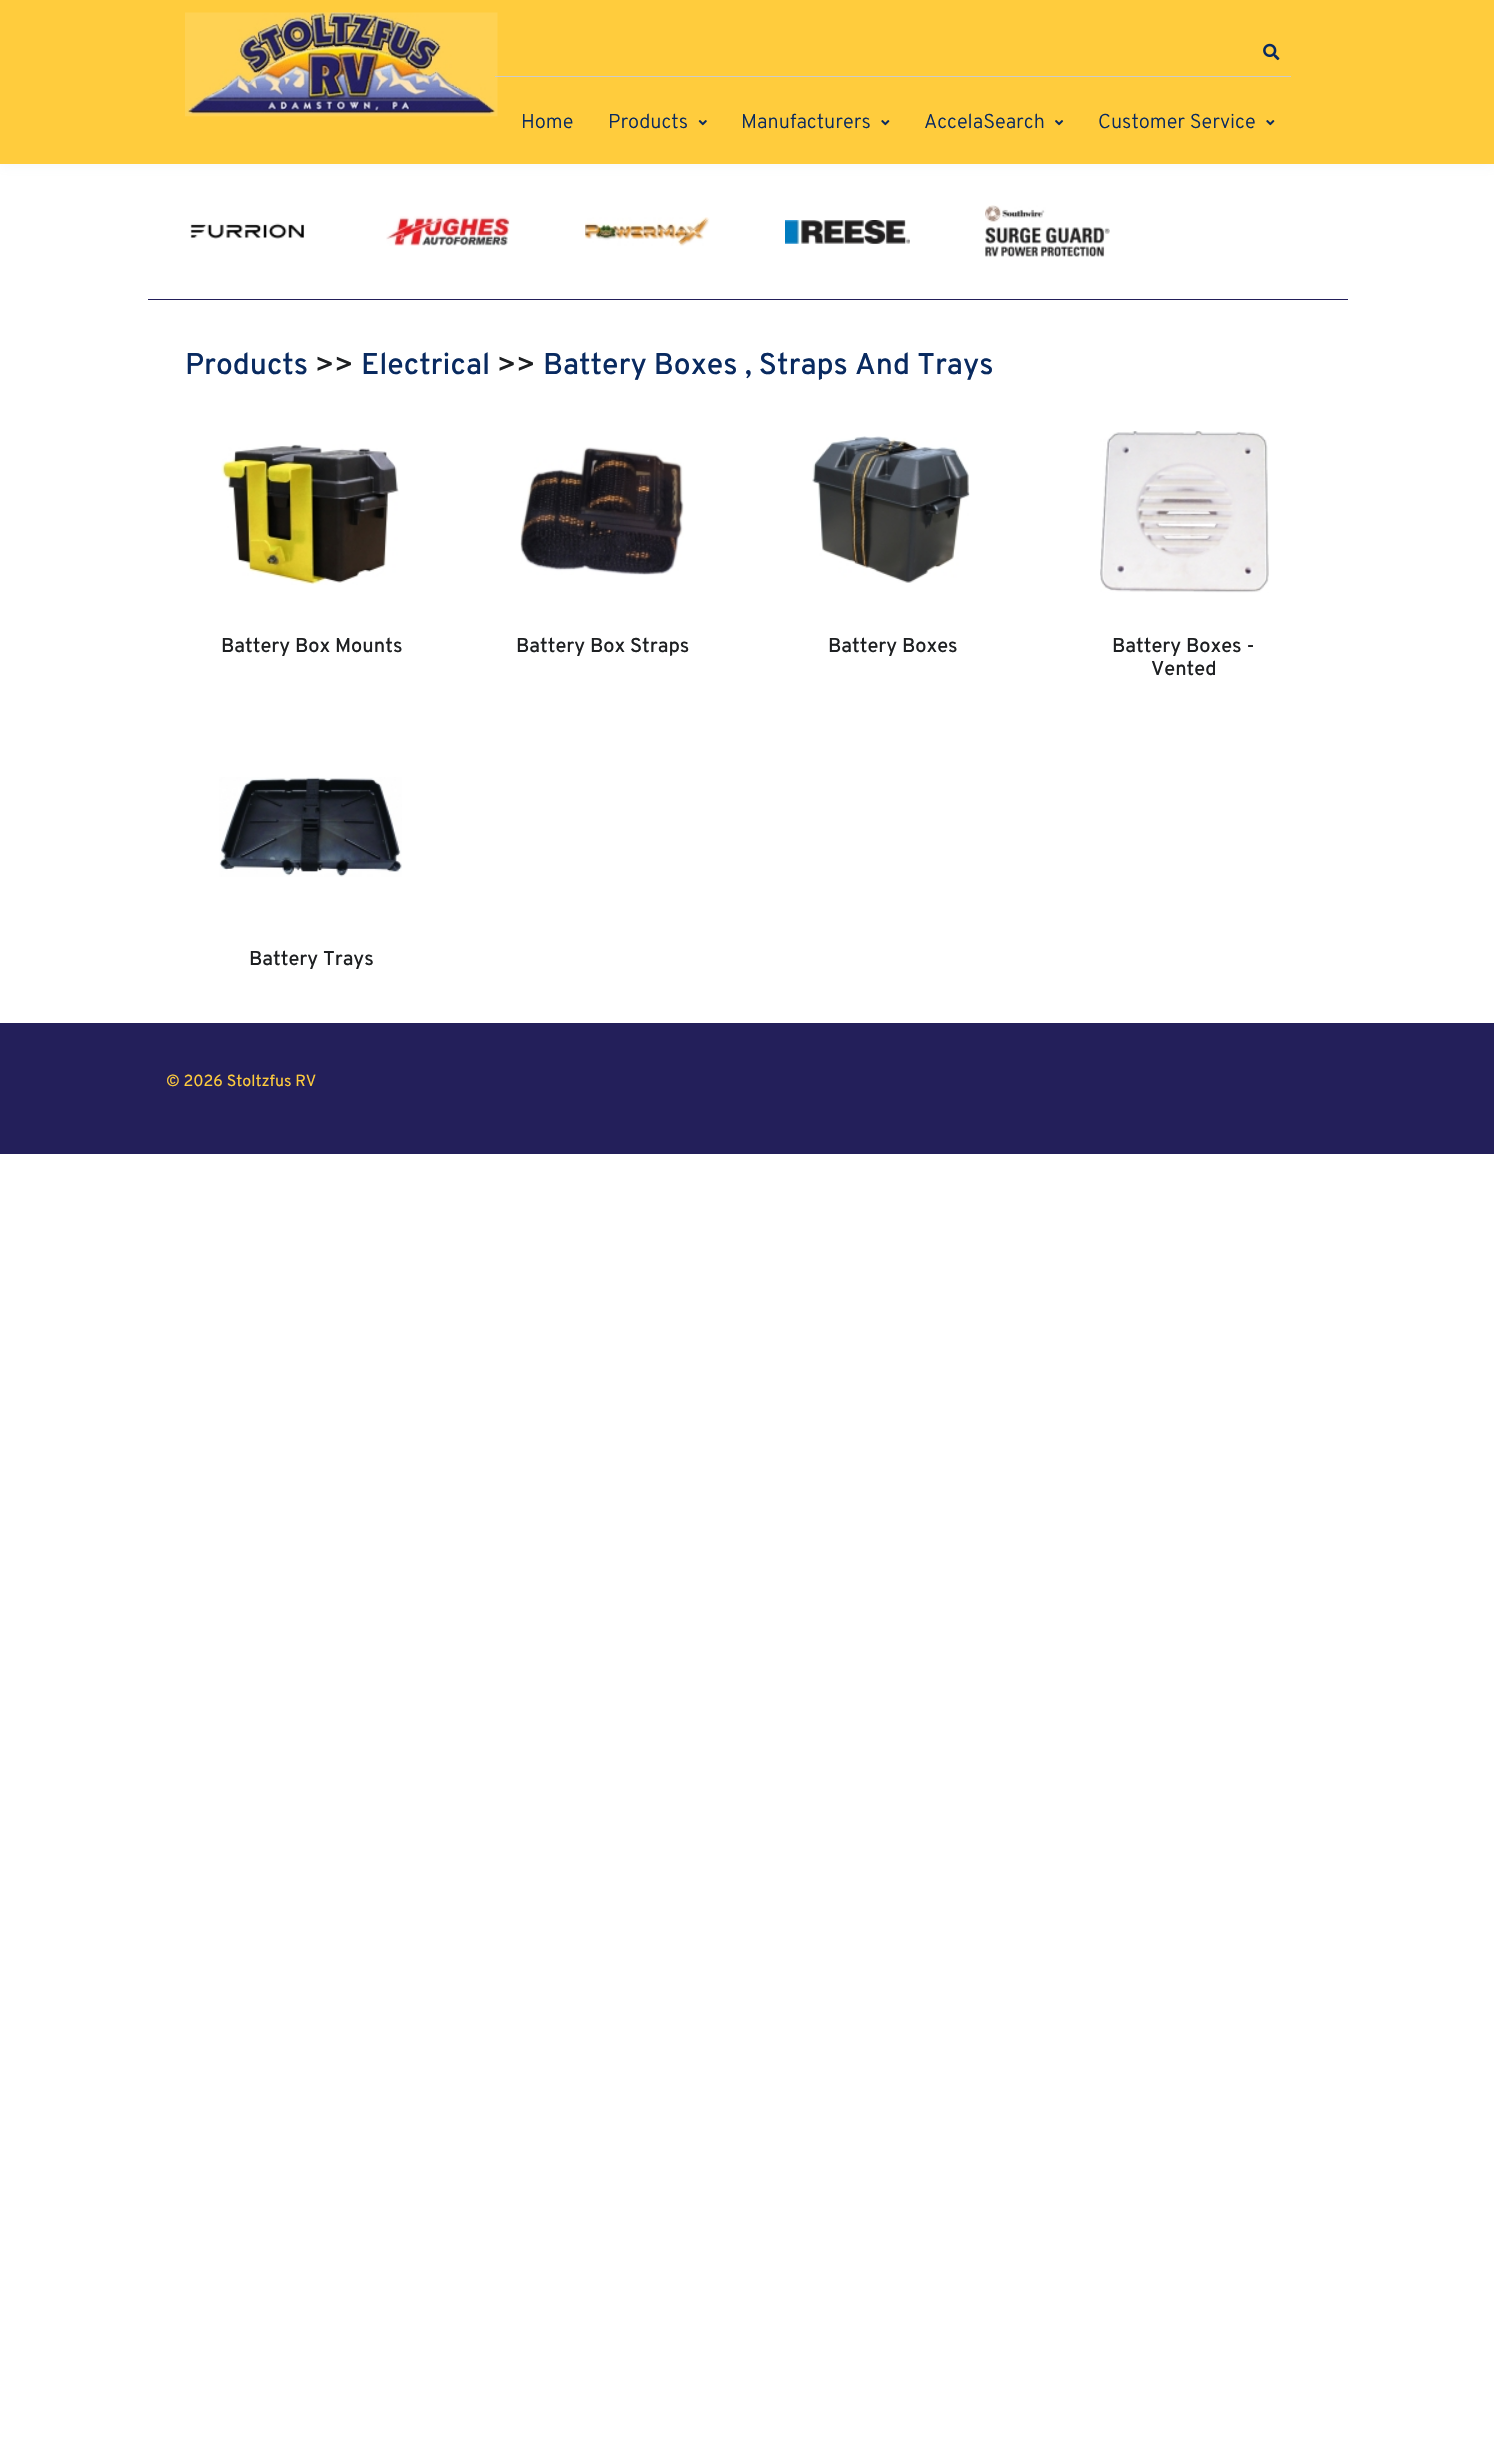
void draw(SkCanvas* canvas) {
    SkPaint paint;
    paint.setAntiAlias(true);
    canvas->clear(0xFFFFFFFF);
    paint.setColor(0x1A97A4AF);
    paint.setMaskFilter(SkMaskFilter::MakeBlur(kNormal_SkBlurStyle, 6));
    canvas->drawRect(SkRect::MakeXYWH(0, 1, 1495, 164), paint);
    paint.setMaskFilter(nullptr);
    paint.setColor(0xFFFFCC3D);
    canvas->drawRect(SkRect::MakeXYWH(0, 0, 1494, 164), paint);
    canvas->drawImageRect(SkImages::DeferredFromEncodedData(SkData::MakeFromFileName("img1.png")), SkRect::MakeXYWH(185, 12, 313, 105), SkSamplingOptions());
    paint.setColor(0xFFCCCCCC);
    canvas->drawRect(SkRect::MakeXYWH(495, 76, 796, 1), paint);
    canvas->drawImageRect(SkImages::DeferredFromEncodedData(SkData::MakeFromFileName("img2.png")), SkRect::MakeXYWH(1263, 43, 17, 18), SkSamplingOptions());
    SkFont font1(fontMgr->matchFamilyStyle("Overpass", SkFontStyle(300, SkFontStyle::kNormal_Width, SkFontStyle::kUpright_Slant)), 20);
    font1.setSubpixel(true);
    paint.setColor(0xFF092A60);
    canvas->drawString("Home", 521, 128, font1, paint);
    canvas->drawString("Products", 608, 128, font1, paint);
    canvas->drawImageRect(SkImages::DeferredFromEncodedData(SkData::MakeFromFileName("img3.png")), SkRect::MakeXYWH(698, 120, 9, 6), SkSamplingOptions());
    canvas->drawString("Manufacturers", 741, 128, font1, paint);
    canvas->drawImageRect(SkImages::DeferredFromEncodedData(SkData::MakeFromFileName("img4.png")), SkRect::MakeXYWH(881, 120, 9, 6), SkSamplingOptions());
    canvas->drawString("AccelaSearch", 924, 128, font1, paint);
    canvas->drawImageRect(SkImages::DeferredFromEncodedData(SkData::MakeFromFileName("img5.png")), SkRect::MakeXYWH(1055, 120, 9, 6), SkSamplingOptions());
    canvas->drawString("Customer Service", 1098, 128, font1, paint);
    canvas->drawImageRect(SkImages::DeferredFromEncodedData(SkData::MakeFromFileName("img4.png")), SkRect::MakeXYWH(1266, 120, 9, 6), SkSamplingOptions());
    paint.setColor(0xFF231F5A);
    canvas->drawRect(SkRect::MakeXYWH(148, 299, 1200, 1), paint);
    canvas->drawImageRect(SkImages::DeferredFromEncodedData(SkData::MakeFromFileName("img6.png")), SkRect::MakeXYWH(190, 223, 115, 16), SkSamplingOptions());
    canvas->drawImageRect(SkImages::DeferredFromEncodedData(SkData::MakeFromFileName("img7.png")), SkRect::MakeXYWH(386, 216, 124, 30), SkSamplingOptions());
    canvas->drawImageRect(SkImages::DeferredFromEncodedData(SkData::MakeFromFileName("img8.png")), SkRect::MakeXYWH(585, 217, 125, 30), SkSamplingOptions());
    canvas->drawImageRect(SkImages::DeferredFromEncodedData(SkData::MakeFromFileName("img9.png")), SkRect::MakeXYWH(785, 220, 125, 24), SkSamplingOptions());
    canvas->drawImageRect(SkImages::DeferredFromEncodedData(SkData::MakeFromFileName("img10.png")), SkRect::MakeXYWH(985, 205, 125, 52), SkSamplingOptions());
    SkFont font2(fontMgr->matchFamilyStyle("Overpass", SkFontStyle(500, SkFontStyle::kNormal_Width, SkFontStyle::kUpright_Slant)), 30);
    font2.setSubpixel(true);
    paint.setColor(0xFF092A60);
    canvas->drawString("Products", 185, 374, font2, paint);
    paint.setColor(0xFF1E2022);
    canvas->drawString(">>", 315, 374, font2, paint);
    paint.setColor(0xFF092A60);
    canvas->drawString("Electrical", 361, 374, font2, paint);
    paint.setColor(0xFF1E2022);
    canvas->drawString(">>", 497, 374, font2, paint);
    paint.setColor(0xFF092A60);
    canvas->drawString("Battery Boxes , Straps And Trays", 543, 374, font2, paint);
    canvas->drawImageRect(SkImages::DeferredFromEncodedData(SkData::MakeFromFileName("img11.png")), SkRect::MakeXYWH(221, 444, 178, 141), SkSamplingOptions());
    SkFont font3(fontMgr->matchFamilyStyle("Overpass", SkFontStyle(500, SkFontStyle::kNormal_Width, SkFontStyle::kUpright_Slant)), 20);
    font3.setSubpixel(true);
    paint.setColor(0xFF1E2022);
    canvas->drawString("Battery Box Mounts", 221, 652, font3, paint);
    canvas->drawImageRect(SkImages::DeferredFromEncodedData(SkData::MakeFromFileName("img12.png")), SkRect::MakeXYWH(520, 447, 164, 128), SkSamplingOptions());
    canvas->drawString("Battery Box Straps", 516, 652, font3, paint);
    canvas->drawImageRect(SkImages::DeferredFromEncodedData(SkData::MakeFromFileName("img13.png")), SkRect::MakeXYWH(812, 436, 158, 147), SkSamplingOptions());
    canvas->drawString("Battery Boxes", 828, 652, font3, paint);
    canvas->drawImageRect(SkImages::DeferredFromEncodedData(SkData::MakeFromFileName("img14.png")), SkRect::MakeXYWH(1100, 431, 169, 162), SkSamplingOptions());
    canvas->drawString("Battery Boxes -", 1112, 652, font3, paint);
    canvas->drawString("Vented", 1151, 675, font3, paint);
    canvas->drawImageRect(SkImages::DeferredFromEncodedData(SkData::MakeFromFileName("img15.png")), SkRect::MakeXYWH(219, 777, 183, 100), SkSamplingOptions());
    canvas->drawString("Battery Trays", 249, 965, font3, paint);
    paint.setColor(0xFF231F5A);
    canvas->drawRect(SkRect::MakeXYWH(0, 1023, 1494, 131), paint);
    SkFont font4(fontMgr->matchFamilyStyle("Overpass", SkFontStyle::Normal()), 16);
    font4.setSubpixel(true);
    paint.setColor(0xFFFFCC3D);
    canvas->drawString("© 2026 Stoltzfus RV", 166, 1086, font4, paint);
}
